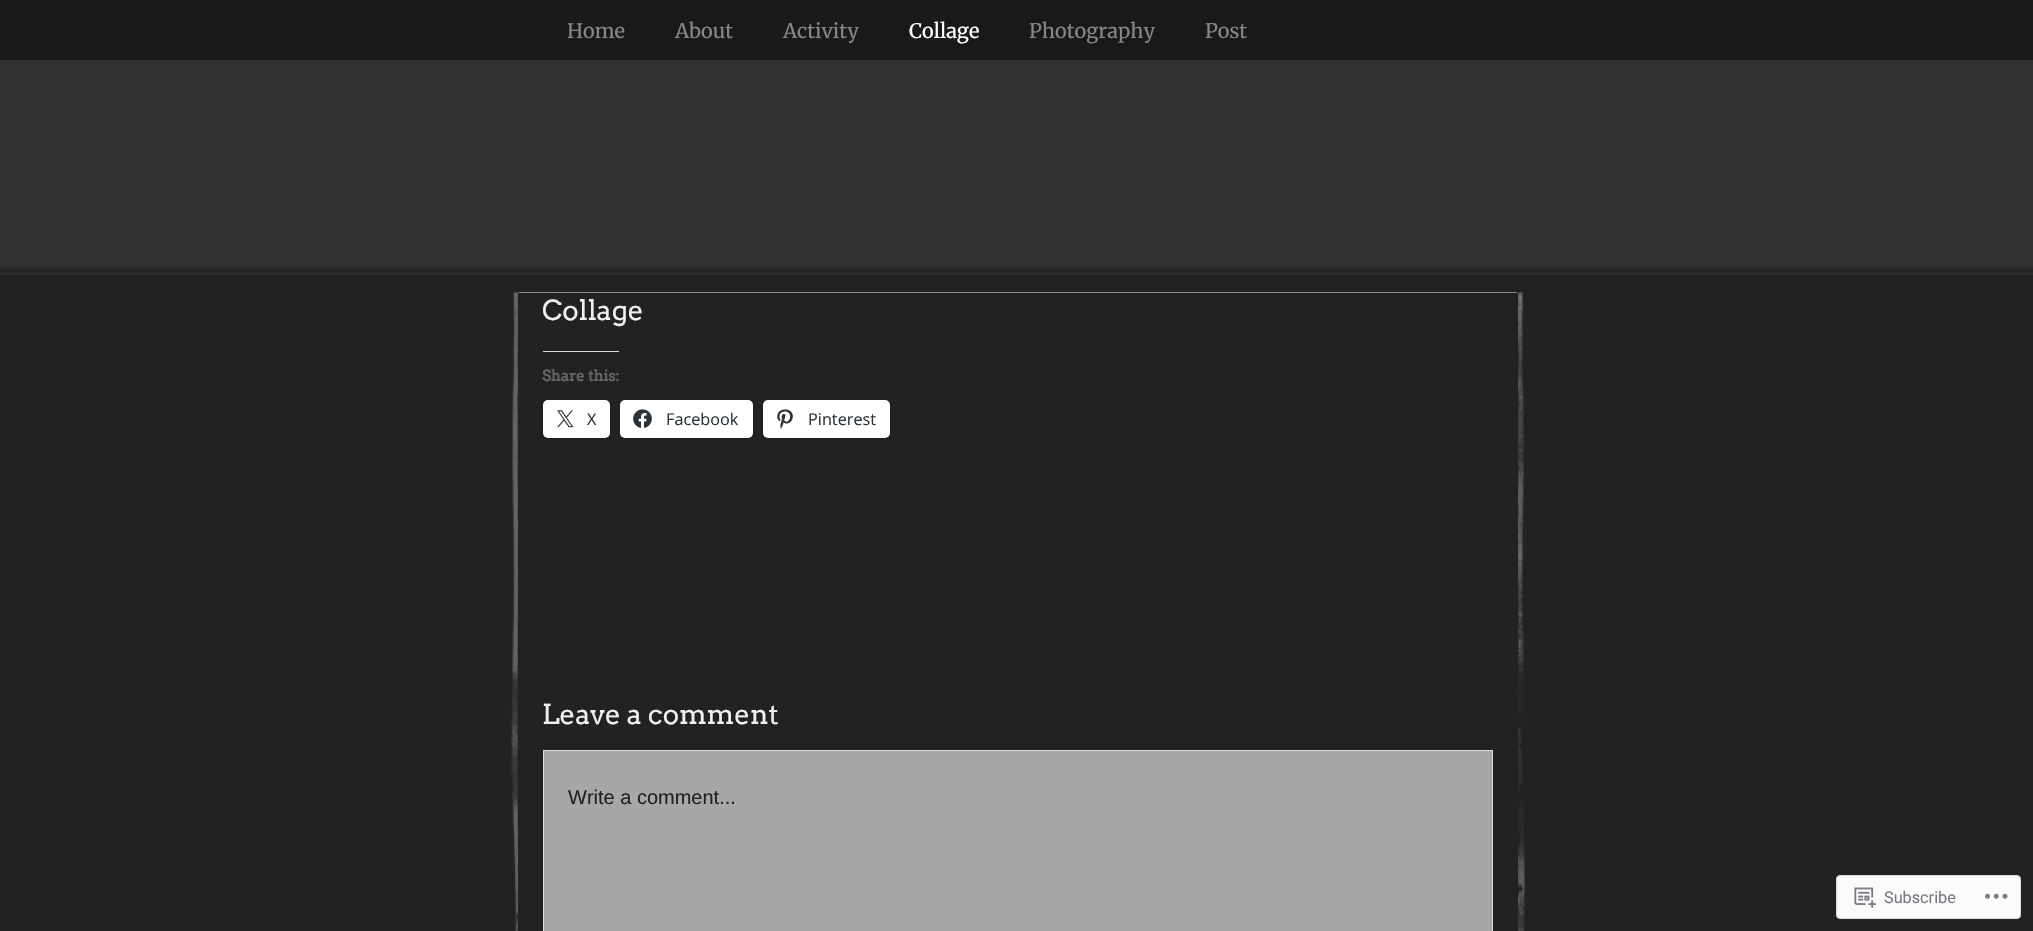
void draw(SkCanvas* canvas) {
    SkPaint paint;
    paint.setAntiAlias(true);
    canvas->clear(0xFF222222);
    paint.setColor(0xFF191919);
    canvas->drawRect(SkRect::MakeXYWH(0, 0, 2033, 60), paint);
    paint.setColor(0xFF373737);
    canvas->drawRect(SkRect::MakeXYWH(0, 60, 2033, 1), paint);
    SkFont font1(fontMgr->matchFamilyStyle("Merriweather", SkFontStyle::Normal()), 20);
    font1.setSubpixel(true);
    paint.setColor(0xFF868686);
    canvas->drawString("Home", 567, 38, font1, paint);
    canvas->drawString("About", 675, 38, font1, paint);
    canvas->drawString("Activity", 783, 38, font1, paint);
    paint.setColor(0xFFFFFFFF);
    canvas->drawString("Collage", 909, 38, font1, paint);
    paint.setColor(0xFF868686);
    canvas->drawString("Photography", 1029, 38, font1, paint);
    canvas->drawString("Post", 1205, 38, font1, paint);
    canvas->drawImageRect(SkImages::DeferredFromEncodedData(SkData::MakeFromFileName("img1.png")), SkRect::MakeXYWH(0, 61, 2033, 214), SkSamplingOptions());
    canvas->drawImageRect(SkImages::DeferredFromEncodedData(SkData::MakeFromFileName("img2.png")), SkRect::MakeXYWH(511, 292, 1014, 639), SkSamplingOptions());
    paint.setColor(0xFF222222);
    canvas->drawRect(SkRect::MakeXYWH(518, 293, 1000, 638), paint);
    SkFont font2(fontMgr->matchFamilyStyle("Arvo", SkFontStyle::Normal()), 27.5f);
    font2.setSubpixel(true);
    paint.setColor(0xFFF2EFEF);
    canvas->drawString("Collage", 542, 320, font2, paint);
    paint.setColor(0xFFDCDCDE);
    canvas->drawRect(SkRect::MakeXYWH(543, 351, 76, 1), paint);
    SkFont font3(fontMgr->matchFamilyStyle("Arvo", SkFontStyle::Bold()), 15);
    font3.setSubpixel(true);
    paint.setColor(0xFF666666);
    canvas->drawString("Share this:", 542, 381, font3, paint);
    paint.setStyle(SkPaint::kStroke_Style);
    paint.setStrokeWidth(1);
    paint.setColor(0xFF1E1E1E);
    canvas->drawRoundRect(SkRect::MakeXYWH(541.5f, 399.5f, 69, 39), 5.5f, 5.5f, paint);
    paint.setStyle(SkPaint::kFill_Style);
    paint.setColor(0xFFFFFFFF);
    canvas->drawRoundRect(SkRect::MakeXYWH(543, 400, 67, 38), 5, 5, paint);
    canvas->drawImageRect(SkImages::DeferredFromEncodedData(SkData::MakeFromFileName("img3.png")), SkRect::MakeXYWH(557, 410, 17, 18), SkSamplingOptions());
    SkFont font4(fontMgr->matchFamilyStyle("Open Sans", SkFontStyle::Normal()), 16.25f);
    font4.setSubpixel(true);
    paint.setColor(0xFF2C3338);
    canvas->drawString("X", 587, 425, font4, paint);
    paint.setStyle(SkPaint::kStroke_Style);
    paint.setColor(0xFF1E1E1E);
    canvas->drawRoundRect(SkRect::MakeXYWH(619.5f, 399.5f, 134, 39), 5.5f, 5.5f, paint);
    paint.setStyle(SkPaint::kFill_Style);
    paint.setColor(0xFFFFFFFF);
    canvas->drawRoundRect(SkRect::MakeXYWH(620, 400, 133, 38), 5, 5, paint);
    canvas->drawImageRect(SkImages::DeferredFromEncodedData(SkData::MakeFromFileName("img4.png")), SkRect::MakeXYWH(633, 409, 19, 19), SkSamplingOptions());
    paint.setColor(0xFF2C3338);
    canvas->drawString("Facebook", 666, 425, font4, paint);
    paint.setStyle(SkPaint::kStroke_Style);
    paint.setColor(0xFF1E1E1E);
    canvas->drawRoundRect(SkRect::MakeXYWH(761.5f, 399.5f, 129, 39), 5.5f, 5.5f, paint);
    paint.setStyle(SkPaint::kFill_Style);
    paint.setColor(0xFFFFFFFF);
    canvas->drawRoundRect(SkRect::MakeXYWH(763, 400, 127, 38), 5, 5, paint);
    canvas->drawImageRect(SkImages::DeferredFromEncodedData(SkData::MakeFromFileName("img5.png")), SkRect::MakeXYWH(777, 409, 16, 20), SkSamplingOptions());
    paint.setColor(0xFF2C3338);
    canvas->drawString("Pinterest", 808, 425, font4, paint);
    paint.setColor(0xFFF2EFEF);
    canvas->drawString("Leave a comment", 542, 724, font2, paint);
    paint.setColor(0xFFA7A7A7);
    canvas->drawRect(SkRect::MakeXYWH(543.5f, 750.5f, 949, 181), paint);
    paint.setStyle(SkPaint::kStroke_Style);
    paint.setColor(0xFFDCDCDE);
    canvas->drawRect(SkRect::MakeXYWH(543.5f, 750.5f, 949, 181), paint);
    SkFont font5(fontMgr->matchFamilyStyle("Liberation Sans", SkFontStyle::Normal()), 20);
    font5.setSubpixel(true);
    paint.setStyle(SkPaint::kFill_Style);
    paint.setColor(0xFF212121);
    canvas->drawString("Write a comment...", 568, 804, font5, paint);
    paint.setColor(0xFFFBFBFB);
    canvas->drawRoundRect(SkRect::MakeXYWH(1836.5f, 875.5f, 184, 43), 3.5f, 3.5f, paint);
    paint.setStyle(SkPaint::kStroke_Style);
    paint.setColor(0xFFD8D8DA);
    canvas->drawRoundRect(SkRect::MakeXYWH(1836.5f, 875.5f, 184, 43), 3.5f, 3.5f, paint);
    canvas->drawImageRect(SkImages::DeferredFromEncodedData(SkData::MakeFromFileName("img6.png")), SkRect::MakeXYWH(1854, 887, 22, 21), SkSamplingOptions());
    SkFont font6(fontMgr->matchFamilyStyle("Roboto", SkFontStyle::Normal()), 16.25f);
    font6.setSubpixel(true);
    paint.setStyle(SkPaint::kFill_Style);
    paint.setColor(0xFF767A80);
    canvas->drawString("Subscribe", 1884, 903, font6, paint);
    canvas->drawImageRect(SkImages::DeferredFromEncodedData(SkData::MakeFromFileName("img7.png")), SkRect::MakeXYWH(1985, 893, 23, 6), SkSamplingOptions());
}
